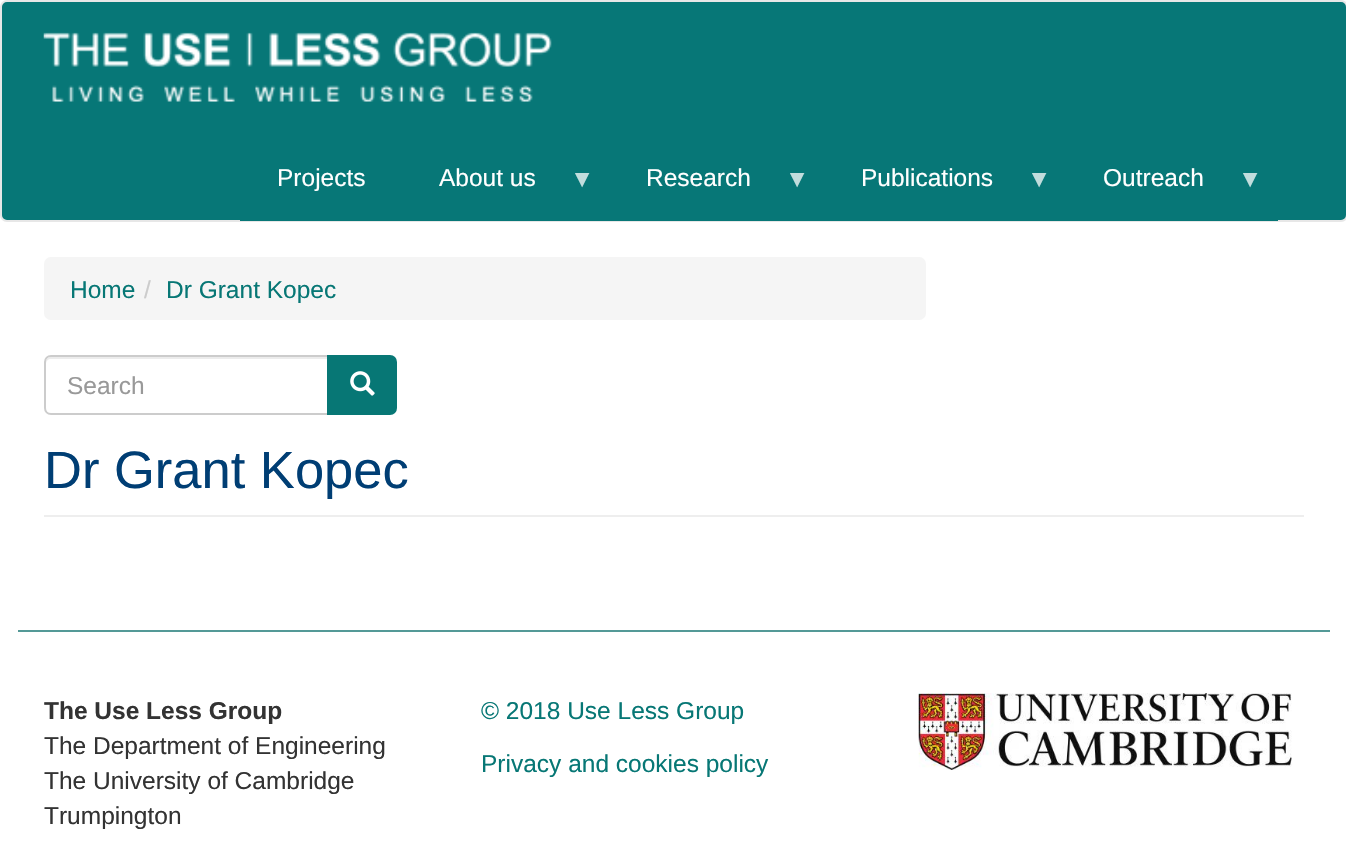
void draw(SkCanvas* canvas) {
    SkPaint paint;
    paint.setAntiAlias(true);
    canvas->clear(0xFFFFFFFF);
    paint.setColor(0xFF077777);
    canvas->drawRoundRect(SkRect::MakeXYWH(1, 1, 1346, 220), 6, 6, paint);
    paint.setStyle(SkPaint::kStroke_Style);
    paint.setStrokeWidth(2);
    paint.setColor(0xFFE7E7E7);
    canvas->drawRoundRect(SkRect::MakeXYWH(1, 1, 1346, 220), 6, 6, paint);
    canvas->drawImageRect(SkImages::DeferredFromEncodedData(SkData::MakeFromFileName("img1.png")), SkRect::MakeXYWH(43, 32, 509, 70), SkSamplingOptions());
    paint.setStyle(SkPaint::kFill_Style);
    paint.setColor(0xFF077777);
    canvas->drawRect(SkRect::MakeXYWH(240, 220, 1038, 1), paint);
    SkFont font1(fontMgr->matchFamilyStyle("Liberation Sans", SkFontStyle::Normal()), 24.5f);
    font1.setSubpixel(true);
    paint.setColor(0xFFFFFFFF);
    canvas->drawString("Projects", 277, 186, font1, paint);
    canvas->drawString("About us", 439, 186, font1, paint);
    paint.setColor(0xFFC1DDDD);
    canvas->drawString("▼", 570, 187, font1, paint);
    paint.setColor(0xFFFFFFFF);
    canvas->drawString("Research", 646, 186, font1, paint);
    paint.setColor(0xFFC1DDDD);
    canvas->drawString("▼", 785, 187, font1, paint);
    paint.setColor(0xFFFFFFFF);
    canvas->drawString("Publications", 861, 186, font1, paint);
    paint.setColor(0xFFC1DDDD);
    canvas->drawString("▼", 1027, 187, font1, paint);
    paint.setColor(0xFFFFFFFF);
    canvas->drawString("Outreach", 1103, 186, font1, paint);
    paint.setColor(0xFFC1DDDD);
    canvas->drawString("▼", 1238, 187, font1, paint);
    paint.setColor(0xFFF5F5F5);
    canvas->drawRoundRect(SkRect::MakeXYWH(44, 257, 882, 63), 7, 7, paint);
    paint.setColor(0xFF077775);
    canvas->drawString("Home", 70, 298, font1, paint);
    paint.setColor(0xFFCCCCCC);
    canvas->drawString("/", 144, 298, font1, paint);
    paint.setColor(0xFF077775);
    canvas->drawString("Dr Grant Kopec", 166, 298, font1, paint);
    paint.setColor(0xFFECECEC);
    canvas->drawPath(SkPathBuilder().moveTo(51, 359).lineTo(327, 359).lineTo(327, 357).lineTo(50, 357).cubicTo(46, 358, 46, 361, 46, 364).cubicTo(46, 361, 48, 359, 51, 359).close().detach(), paint);
    paint.setStyle(SkPaint::kStroke_Style);
    paint.setColor(0xFFCCCCCC);
    canvas->drawPath(SkPathBuilder().moveTo(51, 356).lineTo(328, 356).lineTo(328, 414).lineTo(51, 414).cubicTo(47.5f, 414, 45, 411.5f, 45, 408).lineTo(45, 362).cubicTo(45, 358.5f, 47.5f, 356, 51, 356).close().detach(), paint);
    paint.setStyle(SkPaint::kFill_Style);
    paint.setColor(0xFF999999);
    canvas->drawString("Search", 67, 394, font1, paint);
    paint.setColor(0xFF077775);
    canvas->drawPath(SkPathBuilder().moveTo(328, 356).lineTo(390, 356).cubicTo(393.5f, 356, 396, 358.5f, 396, 362).lineTo(396, 408).cubicTo(396, 411.5f, 393.5f, 414, 390, 414).lineTo(328, 414).close().detach(), paint);
    paint.setStyle(SkPaint::kStroke_Style);
    canvas->drawPath(SkPathBuilder().moveTo(328, 356).lineTo(390, 356).cubicTo(393.5f, 356, 396, 358.5f, 396, 362).lineTo(396, 408).cubicTo(396, 411.5f, 393.5f, 414, 390, 414).lineTo(328, 414).close().detach(), paint);
    canvas->drawImageRect(SkImages::DeferredFromEncodedData(SkData::MakeFromFileName("img2.png")), SkRect::MakeXYWH(350, 371, 25, 25), SkSamplingOptions());
    paint.setStyle(SkPaint::kFill_Style);
    paint.setColor(0xFFEEEEEE);
    canvas->drawRect(SkRect::MakeXYWH(44, 515, 1260, 2), paint);
    SkFont font2(fontMgr->matchFamilyStyle("Liberation Sans", SkFontStyle::Normal()), 52.5f);
    font2.setSubpixel(true);
    paint.setColor(0xFF003E74);
    canvas->drawString("Dr Grant Kopec", 44, 488, font2, paint);
    paint.setColor(0xFF549997);
    canvas->drawRect(SkRect::MakeXYWH(18, 630, 1312, 2), paint);
    SkFont font3(fontMgr->matchFamilyStyle("Liberation Sans", SkFontStyle::Bold()), 24.5f);
    font3.setSubpixel(true);
    paint.setColor(0xFF333333);
    canvas->drawString("The Use Less Group", 44, 719, font3, paint);
    canvas->drawString("The Department of Engineering", 44, 754, font1, paint);
    canvas->drawString("The University of Cambridge", 44, 789, font1, paint);
    canvas->drawString("Trumpington", 44, 824, font1, paint);
    paint.setColor(0xFF077775);
    canvas->drawString("© 2018 Use Less Group", 481, 719, font1, paint);
    canvas->drawString("Privacy and cookies policy", 481, 772, font1, paint);
    canvas->drawImageRect(SkImages::DeferredFromEncodedData(SkData::MakeFromFileName("img3.png")), SkRect::MakeXYWH(918, 693, 374, 77), SkSamplingOptions());
}
